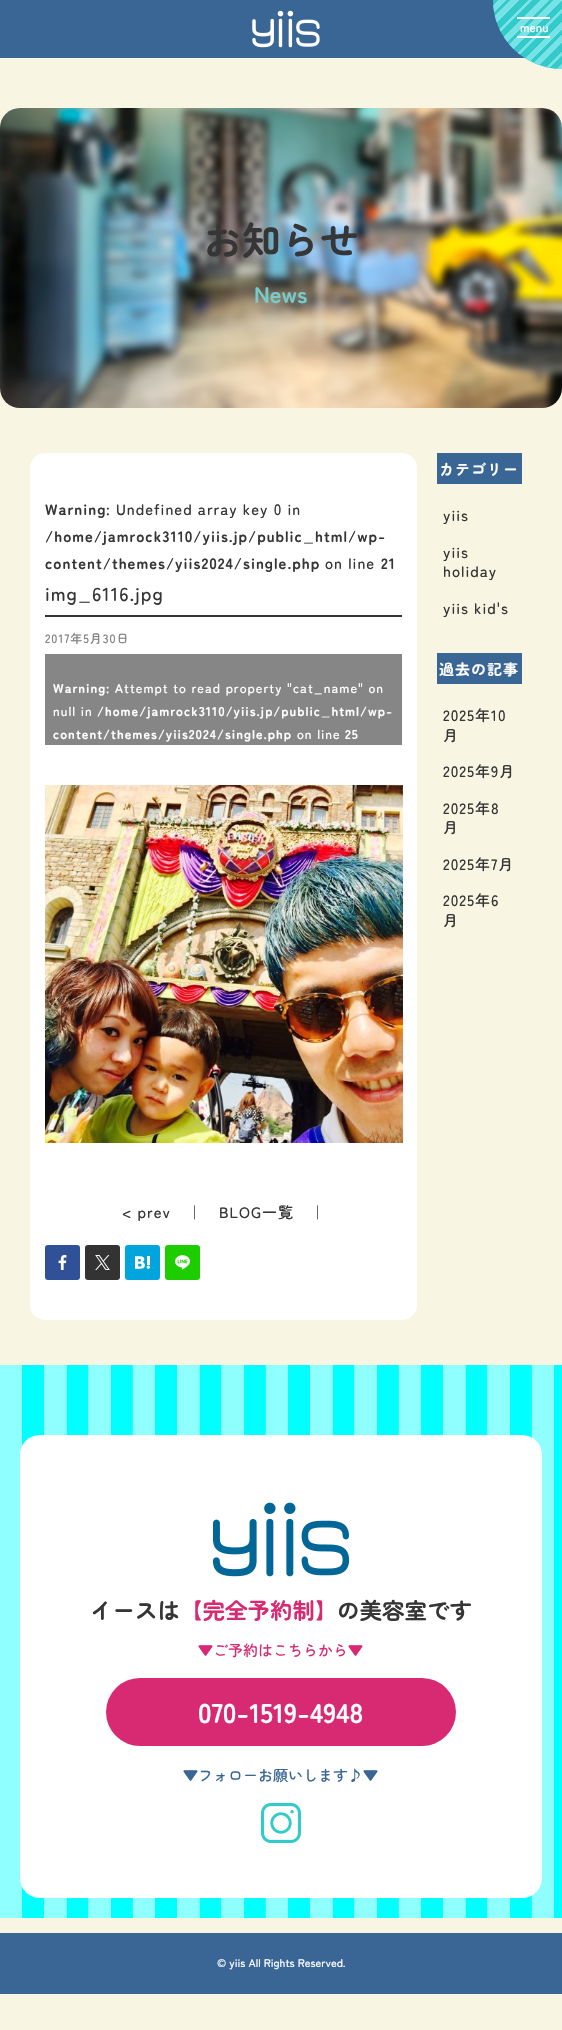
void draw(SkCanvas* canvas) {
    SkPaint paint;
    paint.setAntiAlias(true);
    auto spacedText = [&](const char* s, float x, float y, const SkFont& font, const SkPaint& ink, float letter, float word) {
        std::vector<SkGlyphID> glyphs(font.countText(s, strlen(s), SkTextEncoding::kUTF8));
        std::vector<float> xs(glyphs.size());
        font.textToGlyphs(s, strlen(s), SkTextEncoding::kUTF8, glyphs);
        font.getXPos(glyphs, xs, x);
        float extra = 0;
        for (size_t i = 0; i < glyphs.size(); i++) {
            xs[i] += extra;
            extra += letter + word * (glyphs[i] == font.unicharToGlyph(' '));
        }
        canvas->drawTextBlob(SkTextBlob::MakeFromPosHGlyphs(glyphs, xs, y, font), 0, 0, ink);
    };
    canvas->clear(0xFFF8F6E3);
    paint.setColor(0xFF3A6695);
    canvas->drawRect(SkRect::MakeXYWH(0, 0, 525, 58), paint);
    paint.setColor(0xFF35CACA);
    canvas->drawCircle(562, 0, 69, paint);
    {
        const SkColor colors[] = {0x00000000, 0x0077E3E7, 0xFF77E3E7, 0xFF77E3E7, 0x0077E3E7, 0x0077E3E7, 0xFF77E3E7, 0xFF77E3E7, 0x0077E3E7, 0x0077E3E7, 0xFF77E3E7, 0xFF77E3E7, 0x0077E3E7, 0x0077E3E7, 0xFF77E3E7, 0xFF77E3E7, 0x0077E3E7, 0x0077E3E7, 0xFF77E3E7, 0xFF77E3E7, 0x0077E3E7, 0x0077E3E7, 0xFF77E3E7, 0xFF77E3E7, 0x0077E3E7, 0x0077E3E7, 0xFF77E3E7, 0xFF77E3E7, 0x0077E3E7, 0x0077E3E7, 0xFF77E3E7, 0xFF77E3E7, 0x0077E3E7, 0x0077E3E7, 0xFF77E3E7, 0xFF77E3E7, 0x0077E3E7, 0x0077E3E7, 0xFF77E3E7, 0xFF77E3E7, 0x0077E3E7, 0x0077E3E7, 0xFF77E3E7, 0xFF77E3E7, 0x0077E3E7, 0x0077E3E7, 0xFF77E3E7, 0xFF77E3E7, 0x0077E3E7, 0x0077E3E7, 0xFF77E3E7, 0xFF77E3E7, 0x0077E3E7, 0x0077E3E7, 0xFF77E3E7, 0xFF77E3E7, 0x0077E3E7, 0x0077E3E7, 0xFF77E3E7, 0xFF77E3E7, 0x0077E3E7, 0x0077E3E7, 0xFF77E3E7, 0xFF77E3E7, 0x0077E3E7, 0x0077E3E7, 0xFF77E3E7, 0xFF77E3E7, 0x0077E3E7, 0x0077E3E7, 0xFF77E3E7, 0xFF77E3E7, 0x0077E3E7, 0x0077E3E7, 0xFF77E3E7, 0xFF77E3E7, 0x0077E3E7, 0x0077E3E7, 0xFF77E3E7, 0xFF77E3E7, 0x0077E3E7, 0x0077E3E7, 0xFF77E3E7, 0xFF77E3E7, 0x0077E3E7, 0x0077E3E7, 0xFF77E3E7, 0xFF77E3E7, 0x0077E3E7, 0x0077E3E7, 0xFF77E3E7, 0xFF77E3E7, 0x0077E3E7, 0x0077E3E7, 0xFF77E3E7, 0xFF77E3E7, 0x0077E3E7, 0x0077E3E7, 0xFF77E3E7, 0xFF77E3E7, 0x0077E3E7, 0x0077E3E7, 0xFF77E3E7, 0xFF77E3E7, 0x0077E3E7, 0x0077E3E7, 0xFF77E3E7, 0xFF77E3E7, 0x0077E3E7, 0x0077E3E7, 0xFF77E3E7, 0xFF77E3E7, 0x0077E3E7, 0x0077E3E7, 0xFF77E3E7, 0xFF77E3E7, 0x0077E3E7, 0x0077E3E7, 0xFF77E3E7, 0xFF77E3E7};
        const float stops[] = {0, 0.02f, 0.02f, 0.03f, 0.03f, 0.05f, 0.05f, 0.07f, 0.07f, 0.08f, 0.08f, 0.1f, 0.1f, 0.12f, 0.12f, 0.13f, 0.13f, 0.15f, 0.15f, 0.17f, 0.17f, 0.18f, 0.18f, 0.2f, 0.2f, 0.22f, 0.22f, 0.23f, 0.23f, 0.25f, 0.25f, 0.27f, 0.27f, 0.28f, 0.28f, 0.3f, 0.3f, 0.32f, 0.32f, 0.33f, 0.33f, 0.35f, 0.35f, 0.37f, 0.37f, 0.38f, 0.38f, 0.4f, 0.4f, 0.42f, 0.42f, 0.43f, 0.43f, 0.45f, 0.45f, 0.47f, 0.47f, 0.48f, 0.48f, 0.5f, 0.5f, 0.52f, 0.52f, 0.53f, 0.53f, 0.55f, 0.55f, 0.57f, 0.57f, 0.58f, 0.58f, 0.6f, 0.6f, 0.62f, 0.62f, 0.63f, 0.63f, 0.65f, 0.65f, 0.67f, 0.67f, 0.68f, 0.68f, 0.7f, 0.7f, 0.72f, 0.72f, 0.73f, 0.73f, 0.75f, 0.75f, 0.77f, 0.77f, 0.78f, 0.78f, 0.8f, 0.8f, 0.82f, 0.82f, 0.83f, 0.83f, 0.85f, 0.85f, 0.87f, 0.87f, 0.88f, 0.88f, 0.9f, 0.9f, 0.92f, 0.92f, 0.93f, 0.93f, 0.95f, 0.95f, 0.97f, 0.97f, 0.98f, 0.98f, 1};
        const SkPoint ends[] = {{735, 104}, {522, -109}};
        paint.setShader(SkGradientShader::MakeLinear(ends, colors, stops, 120, SkTileMode::kClamp));
        paint.setAlpha(255);
    }
    canvas->drawCircle(562, 0, 69, paint);
    paint.setShader(nullptr);
    paint.setColor(0xFFFFFFFF);
    canvas->drawRect(SkRect::MakeXYWH(517, 17, 33, 2), paint);
    SkFont font1(fontMgr->matchFamilyStyle("Zen Maru Gothic", SkFontStyle(500, SkFontStyle::kNormal_Width, SkFontStyle::kUpright_Slant)), 12);
    font1.setSubpixel(true);
    canvas->drawString("menu", 520, 32, font1, paint);
    canvas->drawRect(SkRect::MakeXYWH(517, 36, 33, 2), paint);
    canvas->drawImageRect(SkImages::DeferredFromEncodedData(SkData::MakeFromFileName("img1.png")), SkRect::MakeXYWH(252, 10, 68, 38), SkSamplingOptions());
    canvas->drawImageRect(SkImages::DeferredFromEncodedData(SkData::MakeFromFileName("img2.png")), SkRect::MakeXYWH(0, 108, 562, 300), SkSamplingOptions());
    SkFont font2(fontMgr->matchFamilyStyle("Zen Maru Gothic", SkFontStyle::Bold()), 39);
    font2.setSubpixel(true);
    paint.setColor(0xFF363636);
    canvas->drawString("お知らせ", 203, 255, font2, paint);
    SkFont font3(fontMgr->matchFamilyStyle("Zen Maru Gothic", SkFontStyle::Bold()), 22.5f);
    font3.setSubpixel(true);
    paint.setColor(0xFF79CACA);
    canvas->drawString("News", 254, 303, font3, paint);
    paint.setColor(0xFFFFFFFF);
    canvas->drawRoundRect(SkRect::MakeXYWH(30, 453, 387, 867), 15, 15, paint);
    SkFont font4(fontMgr->matchFamilyStyle("Zen Maru Gothic", SkFontStyle::Bold()), 15);
    font4.setSubpixel(true);
    paint.setColor(0xFF363636);
    spacedText("Warning", 45, 515, font4, paint, 1, 0);
    SkFont font5(fontMgr->matchFamilyStyle("Zen Maru Gothic", SkFontStyle(500, SkFontStyle::kNormal_Width, SkFontStyle::kUpright_Slant)), 15);
    font5.setSubpixel(true);
    spacedText(": Undefined array key 0 in", 106, 515, font5, paint, 1, 0);
    spacedText("/home/jamrock3110/yiis.jp/public_html/wp-", 45, 542, font4, paint, 1, 0);
    spacedText("content/themes/yiis2024/single.php", 45, 569, font4, paint, 1, 0);
    spacedText("on line", 325, 569, font5, paint, 1, 0);
    spacedText("21", 381, 569, font4, paint, 1, 0);
    paint.setColor(0xFF333333);
    canvas->drawRect(SkRect::MakeXYWH(45, 615, 357, 2), paint);
    SkFont font6(fontMgr->matchFamilyStyle("Zen Maru Gothic", SkFontStyle(500, SkFontStyle::kNormal_Width, SkFontStyle::kUpright_Slant)), 18.75f);
    font6.setSubpixel(true);
    paint.setColor(0xFF363636);
    spacedText("img_6116.jpg", 45, 601, font6, paint, 1, 0);
    paint.setColor(0xFF7F7F7F);
    spacedText("2017年5月30日", 45, 643, font1, paint, 1, 0);
    paint.setColor(0xFF868686);
    canvas->drawRect(SkRect::MakeXYWH(45, 654, 357, 91), paint);
    SkFont font7(fontMgr->matchFamilyStyle("Zen Maru Gothic", SkFontStyle::Bold()), 12.75f);
    font7.setSubpixel(true);
    paint.setColor(0xFFFFFFFF);
    spacedText("Warning", 53, 693, font7, paint, 1, 0);
    SkFont font8(fontMgr->matchFamilyStyle("Zen Maru Gothic", SkFontStyle(500, SkFontStyle::kNormal_Width, SkFontStyle::kUpright_Slant)), 12.75f);
    font8.setSubpixel(true);
    spacedText(": Attempt to read property \"cat_name\" on", 106, 693, font8, paint, 1, 0);
    spacedText("null in", 53, 716, font8, paint, 1, 0);
    spacedText("/home/jamrock3110/yiis.jp/public_html/wp-", 97, 716, font7, paint, 1, 0);
    spacedText("content/themes/yiis2024/single.php", 53, 739, font7, paint, 1, 0);
    spacedText("on line", 297, 739, font8, paint, 1, 0);
    spacedText("25", 345, 739, font7, paint, 1, 0);
    canvas->drawImageRect(SkImages::DeferredFromEncodedData(SkData::MakeFromFileName("img3.png")), SkRect::MakeXYWH(45, 785, 358, 358), SkSamplingOptions());
    paint.setColor(0xFF363636);
    spacedText("< prev", 122, 1218, font5, paint, 1, 0);
    spacedText("｜", 187, 1218, font5, paint, 1, 0);
    spacedText("BLOG一覧", 219, 1218, font5, paint, 1, 0);
    spacedText("｜", 310, 1218, font5, paint, 1, 0);
    paint.setColor(0xFF305097);
    canvas->drawRoundRect(SkRect::MakeXYWH(45, 1245, 35, 35), 3, 3, paint);
    canvas->drawImageRect(SkImages::DeferredFromEncodedData(SkData::MakeFromFileName("img4.png")), SkRect::MakeXYWH(58, 1255, 9, 15), SkSamplingOptions());
    paint.setColor(0xFF333333);
    canvas->drawRoundRect(SkRect::MakeXYWH(85, 1245, 35, 35), 3, 3, paint);
    canvas->drawImageRect(SkImages::DeferredFromEncodedData(SkData::MakeFromFileName("img5.png")), SkRect::MakeXYWH(95, 1255, 15, 15), SkSamplingOptions());
    paint.setColor(0xFF00A5DE);
    canvas->drawRoundRect(SkRect::MakeXYWH(125, 1245, 35, 35), 3, 3, paint);
    canvas->drawImageRect(SkImages::DeferredFromEncodedData(SkData::MakeFromFileName("img6.png")), SkRect::MakeXYWH(135, 1256, 15, 13), SkSamplingOptions());
    paint.setColor(0xFF1DCD00);
    canvas->drawRoundRect(SkRect::MakeXYWH(165, 1245, 35, 35), 3, 3, paint);
    canvas->drawImageRect(SkImages::DeferredFromEncodedData(SkData::MakeFromFileName("img7.png")), SkRect::MakeXYWH(175, 1255, 15, 15), SkSamplingOptions());
    paint.setColor(0xFF3A6695);
    canvas->drawRect(SkRect::MakeXYWH(437, 453, 85, 31), paint);
    paint.setColor(0xFFFFFFFF);
    spacedText("カテゴリー", 439, 475, font4, paint, 1, 0);
    paint.setColor(0xFF363636);
    spacedText("yiis", 443, 521, font5, paint, 1, 0);
    spacedText("yiis", 443, 558, font5, paint, 1, 0);
    spacedText("holiday", 443, 577, font5, paint, 1, 0);
    spacedText("yiis kid's", 443, 614, font5, paint, 1, 0);
    paint.setColor(0xFF3A6695);
    canvas->drawRect(SkRect::MakeXYWH(437, 653, 85, 31), paint);
    paint.setColor(0xFFFFFFFF);
    spacedText("過去の記事", 439, 675, font4, paint, 1, 0);
    paint.setColor(0xFF363636);
    spacedText("2025年10", 443, 721, font5, paint, 1, 0);
    spacedText("月", 443, 741, font5, paint, 1, 0);
    spacedText("2025年9月", 443, 777, font5, paint, 1, 0);
    spacedText("2025年8", 443, 814, font5, paint, 1, 0);
    spacedText("月", 443, 833, font5, paint, 1, 0);
    spacedText("2025年7月", 443, 870, font5, paint, 1, 0);
    spacedText("2025年6", 443, 906, font5, paint, 1, 0);
    spacedText("月", 443, 926, font5, paint, 1, 0);
    canvas->drawImageRect(SkImages::DeferredFromEncodedData(SkData::MakeFromFileName("img8.png")), SkRect::MakeXYWH(0, 1365, 562, 553), SkSamplingOptions());
    paint.setColor(0xFFFFFFFF);
    canvas->drawRoundRect(SkRect::MakeXYWH(20, 1435, 522, 463), 20, 20, paint);
    canvas->drawImageRect(SkImages::DeferredFromEncodedData(SkData::MakeFromFileName("img9.png")), SkRect::MakeXYWH(212, 1502, 138, 75), SkSamplingOptions());
    paint.setColor(0xFF363636);
    canvas->drawString("イースは", 90, 1619, font3, paint);
    paint.setColor(0xFFD72A73);
    canvas->drawString("【完全予約制】", 180, 1619, font3, paint);
    paint.setColor(0xFF363636);
    canvas->drawString("の美容室です", 337, 1619, font3, paint);
    paint.setColor(0xFFD72A73);
    canvas->drawString("▼ご予約はこちらから▼", 198, 1656, font5, paint);
    canvas->drawRoundRect(SkRect::MakeXYWH(106, 1678, 350, 68), 34, 34, paint);
    SkFont font9(fontMgr->matchFamilyStyle("Zen Maru Gothic", SkFontStyle::Bold()), 27);
    font9.setSubpixel(true);
    paint.setColor(0xFFFFFFFF);
    canvas->drawString("070-1519-4948", 198, 1723, font9, paint);
    paint.setColor(0xFF3A6695);
    canvas->drawString("▼フォローお願いします♪▼", 183, 1781, font5, paint);
    canvas->drawImageRect(SkImages::DeferredFromEncodedData(SkData::MakeFromFileName("img10.png")), SkRect::MakeXYWH(261, 1803, 40, 40), SkSamplingOptions());
    canvas->drawRect(SkRect::MakeXYWH(0, 1933, 562, 61), paint);
    SkFont font10(fontMgr->matchFamilyStyle("Zen Maru Gothic", SkFontStyle(500, SkFontStyle::kNormal_Width, SkFontStyle::kUpright_Slant)), 11);
    font10.setSubpixel(true);
    paint.setColor(0xFFFFFFFF);
    canvas->drawString("© yiis All Rights Reserved.", 217, 1967, font10, paint);
}
